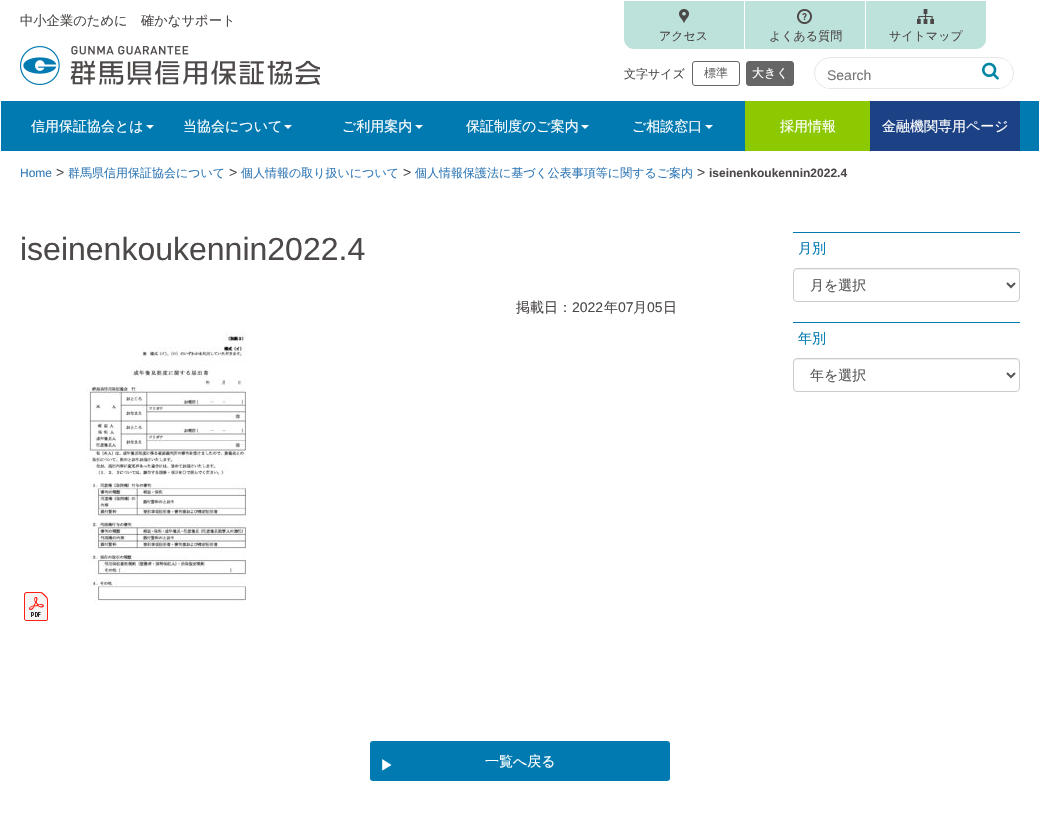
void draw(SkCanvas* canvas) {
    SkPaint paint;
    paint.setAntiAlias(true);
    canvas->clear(0xFFFFFFFF);
    SkFont font1(fontMgr->matchFamilyStyle("WenQuanYi Zen Hei", SkFontStyle(500, SkFontStyle::kNormal_Width, SkFontStyle::kUpright_Slant)), 13.3f);
    font1.setSubpixel(true);
    paint.setColor(0xFF4C4948);
    canvas->drawString("中小企業のために　確かなサポート", 20, 25, font1, paint);
    canvas->drawImageRect(SkImages::DeferredFromEncodedData(SkData::MakeFromFileName("img1.png")), SkRect::MakeXYWH(20, 46, 300, 39), SkSamplingOptions());
    paint.setColor(0xFFBDE1DB);
    canvas->drawPath(SkPathBuilder().moveTo(624, 1).lineTo(744, 1).lineTo(744, 49).lineTo(634, 49).cubicTo(628.5f, 49, 624, 44.5f, 624, 39).close().detach(), paint);
    canvas->drawImageRect(SkImages::DeferredFromEncodedData(SkData::MakeFromFileName("img2.png")), SkRect::MakeXYWH(679, 9, 10, 14), SkSamplingOptions());
    SkFont font2(fontMgr->matchFamilyStyle("WenQuanYi Zen Hei", SkFontStyle(500, SkFontStyle::kNormal_Width, SkFontStyle::kUpright_Slant)), 12);
    font2.setSubpixel(true);
    paint.setColor(0xFF4C4948);
    canvas->drawString("アクセス", 659, 40, font2, paint);
    paint.setColor(0xFFBDE1DB);
    canvas->drawRect(SkRect::MakeXYWH(745, 1, 120, 48), paint);
    canvas->drawImageRect(SkImages::DeferredFromEncodedData(SkData::MakeFromFileName("img3.png")), SkRect::MakeXYWH(797, 9, 15, 15), SkSamplingOptions());
    paint.setColor(0xFF4C4948);
    canvas->drawString("よくある質問", 769, 40, font2, paint);
    paint.setColor(0xFFBDE1DB);
    canvas->drawPath(SkPathBuilder().moveTo(866, 1).lineTo(986, 1).lineTo(986, 39).cubicTo(986, 44.5f, 981.5f, 49, 976, 49).lineTo(866, 49).close().detach(), paint);
    canvas->drawImageRect(SkImages::DeferredFromEncodedData(SkData::MakeFromFileName("img4.png")), SkRect::MakeXYWH(917, 9, 17, 15), SkSamplingOptions());
    paint.setColor(0xFF4C4948);
    canvas->drawString("サイトマップ", 889, 40, font2, paint);
    canvas->drawString("文字サイズ", 624, 78, font2, paint);
    paint.setStyle(SkPaint::kStroke_Style);
    paint.setStrokeWidth(1);
    paint.setColor(0xFF666666);
    canvas->drawRoundRect(SkRect::MakeXYWH(692.5f, 61.5f, 47, 24), 2.5f, 2.5f, paint);
    paint.setStyle(SkPaint::kFill_Style);
    canvas->drawString("標準", 704, 77, font2, paint);
    canvas->drawRoundRect(SkRect::MakeXYWH(746.5f, 61.5f, 47, 24), 2.5f, 2.5f, paint);
    paint.setStyle(SkPaint::kStroke_Style);
    canvas->drawRoundRect(SkRect::MakeXYWH(746.5f, 61.5f, 47, 24), 2.5f, 2.5f, paint);
    paint.setStyle(SkPaint::kFill_Style);
    paint.setColor(0xFFFFFFFF);
    canvas->drawString("大きく", 752, 77, font2, paint);
    paint.setStyle(SkPaint::kStroke_Style);
    paint.setColor(0xFFE7E7E7);
    canvas->drawRoundRect(SkRect::MakeXYWH(814.5f, 57.5f, 199, 31), 15.5f, 15.5f, paint);
    canvas->save();
    canvas->clipPath(SkPathBuilder().moveTo(830, 58).lineTo(998, 58).cubicTo(1006.5f, 58, 1013, 64.5f, 1013, 73).cubicTo(1013, 81.5f, 1006.5f, 88, 998, 88).lineTo(830, 88).cubicTo(821.5f, 88, 815, 81.5f, 815, 73).cubicTo(815, 64.5f, 821.5f, 58, 830, 58).close().detach(), true);
    paint.setStyle(SkPaint::kFill_Style);
    paint.setColor(0xFFFFFFFF);
    canvas->drawRect(SkRect::MakeXYWH(825, 61, 185, 27), paint);
    canvas->restore();
    SkFont font3(fontMgr->matchFamilyStyle("Liberation Sans", SkFontStyle::Normal()), 14);
    font3.setSubpixel(true);
    paint.setColor(0xFF757575);
    canvas->drawString("Search", 827, 80, font3, paint);
    canvas->drawImageRect(SkImages::DeferredFromEncodedData(SkData::MakeFromFileName("img5.png")), SkRect::MakeXYWH(982, 62, 17, 18), SkSamplingOptions());
    paint.setColor(0xFF007AB1);
    canvas->drawRect(SkRect::MakeXYWH(1, 101, 1038, 50), paint);
    SkFont font4(fontMgr->matchFamilyStyle("WenQuanYi Zen Hei", SkFontStyle(500, SkFontStyle::kNormal_Width, SkFontStyle::kUpright_Slant)), 14);
    font4.setSubpixel(true);
    paint.setColor(0xFFFFFFFF);
    canvas->drawString("信用保証協会とは", 31, 131, font4, paint);
    canvas->drawPath(SkPathBuilder().moveTo(146, 125).lineTo(154, 125).lineTo(150, 129).close().detach(), paint);
    canvas->drawString("当協会について", 183, 131, font4, paint);
    canvas->drawPath(SkPathBuilder().moveTo(284, 125).lineTo(292, 125).lineTo(288, 129).close().detach(), paint);
    canvas->drawString("ご利用案内", 342, 131, font4, paint);
    canvas->drawPath(SkPathBuilder().moveTo(415, 125).lineTo(423, 125).lineTo(419, 129).close().detach(), paint);
    canvas->drawString("保証制度のご案内", 466, 131, font4, paint);
    canvas->drawPath(SkPathBuilder().moveTo(581, 125).lineTo(589, 125).lineTo(585, 129).close().detach(), paint);
    canvas->drawString("ご相談窓口", 632, 131, font4, paint);
    canvas->drawPath(SkPathBuilder().moveTo(705, 125).lineTo(713, 125).lineTo(709, 129).close().detach(), paint);
    paint.setColor(0xFF8CC900);
    canvas->drawRect(SkRect::MakeXYWH(745, 101, 125, 50), paint);
    paint.setColor(0xFFFFFFFF);
    canvas->drawString("採用情報", 780, 131, font4, paint);
    paint.setColor(0xFF1C4184);
    canvas->drawRect(SkRect::MakeXYWH(870, 101, 150, 50), paint);
    paint.setColor(0xFFFFFFFF);
    canvas->drawString("金融機関専用ページ", 882, 131, font4, paint);
    SkFont font5(fontMgr->matchFamilyStyle("Liberation Sans", SkFontStyle::Normal()), 12);
    font5.setSubpixel(true);
    paint.setColor(0xFF337AB7);
    canvas->drawString("Home", 20, 177, font5, paint);
    paint.setColor(0xFF4C4948);
    canvas->drawString(">", 56, 177, font3, paint);
    paint.setColor(0xFF337AB7);
    canvas->drawString("群馬県信用保証協会について", 68, 177, font2, paint);
    paint.setColor(0xFF4C4948);
    canvas->drawString(">", 229, 177, font3, paint);
    paint.setColor(0xFF337AB7);
    canvas->drawString("個人情報の取り扱いについて", 241, 177, font2, paint);
    paint.setColor(0xFF4C4948);
    canvas->drawString(">", 403, 177, font3, paint);
    paint.setColor(0xFF337AB7);
    canvas->drawString("個人情報保護法に基づく公表事項等に関するご案内", 415, 177, font2, paint);
    paint.setColor(0xFF4C4948);
    canvas->drawString(">", 697, 177, font3, paint);
    SkFont font6(fontMgr->matchFamilyStyle("Liberation Sans", SkFontStyle::Bold()), 12);
    font6.setSubpixel(true);
    canvas->drawString("iseinenkoukennin2022.4", 709, 177, font6, paint);
    SkFont font7(fontMgr->matchFamilyStyle("Liberation Sans", SkFontStyle::Normal()), 32);
    font7.setSubpixel(true);
    canvas->drawString("iseinenkoukennin2022.4", 20, 260, font7, paint);
    canvas->drawString("掲載日：", 516, 312, font4, paint);
    canvas->drawString("2022", 572, 312, font3, paint);
    canvas->drawString("年", 604, 312, font4, paint);
    canvas->drawString("07", 618, 312, font3, paint);
    canvas->drawString("月", 633, 312, font4, paint);
    canvas->drawString("05", 647, 312, font3, paint);
    canvas->drawString("日", 663, 312, font4, paint);
    canvas->drawImageRect(SkImages::DeferredFromEncodedData(SkData::MakeFromFileName("img6.png")), SkRect::MakeXYWH(86, 331, 160, 272), SkSamplingOptions());
    canvas->drawImageRect(SkImages::DeferredFromEncodedData(SkData::MakeFromFileName("img7.png")), SkRect::MakeXYWH(24, 592, 24, 29), SkSamplingOptions());
    paint.setColor(0xFF007AB1);
    canvas->drawRect(SkRect::MakeXYWH(793, 232, 227, 1), paint);
    canvas->drawString("月別", 798, 253, font4, paint);
    paint.setColor(0xFFECECEC);
    canvas->drawPath(SkPathBuilder().moveTo(797, 270).lineTo(1016, 270).cubicTo(1018, 270, 1019, 271, 1019, 273).lineTo(1019, 272).cubicTo(1019, 270, 1018, 269, 1016, 269).lineTo(797, 269).cubicTo(795, 269, 794, 270, 794, 272).lineTo(794, 273).cubicTo(794, 271, 795, 270, 797, 270).close().detach(), paint);
    paint.setStyle(SkPaint::kStroke_Style);
    paint.setColor(0xFFCCCCCC);
    canvas->drawRoundRect(SkRect::MakeXYWH(793.5f, 268.5f, 226, 33), 3.5f, 3.5f, paint);
    paint.setStrokeWidth(2);
    paint.setColor(0xFF555555);
    canvas->drawPath(SkPathBuilder().moveTo(1007, 283).lineTo(1011, 287).lineTo(1015, 283).detach(), paint);
    paint.setStyle(SkPaint::kFill_Style);
    canvas->drawString("月を選択", 810, 290, font4, paint);
    paint.setColor(0xFF007AB1);
    canvas->drawRect(SkRect::MakeXYWH(793, 322, 227, 1), paint);
    canvas->drawString("年別", 798, 343, font4, paint);
    paint.setColor(0xFFECECEC);
    canvas->drawPath(SkPathBuilder().moveTo(797, 360).lineTo(1016, 360).cubicTo(1018, 360, 1019, 361, 1019, 363).lineTo(1019, 362).cubicTo(1019, 360, 1018, 359, 1016, 359).lineTo(797, 359).cubicTo(795, 359, 794, 360, 794, 362).lineTo(794, 363).cubicTo(794, 361, 795, 360, 797, 360).close().detach(), paint);
    paint.setStyle(SkPaint::kStroke_Style);
    paint.setStrokeWidth(1);
    paint.setColor(0xFFCCCCCC);
    canvas->drawRoundRect(SkRect::MakeXYWH(793.5f, 358.5f, 226, 33), 3.5f, 3.5f, paint);
    paint.setStrokeWidth(2);
    paint.setColor(0xFF555555);
    canvas->drawPath(SkPathBuilder().moveTo(1007, 373).lineTo(1011, 377).lineTo(1015, 373).detach(), paint);
    paint.setStyle(SkPaint::kFill_Style);
    canvas->drawString("年を選択", 810, 380, font4, paint);
    paint.setColor(0xFF007AB1);
    canvas->drawRoundRect(SkRect::MakeXYWH(370, 741, 300, 40), 3, 3, paint);
    paint.setColor(0xFFFFFFFF);
    canvas->drawString("▶", 380, 770, font4, paint);
    canvas->drawString("一覧へ戻る", 485, 766, font4, paint);
}
